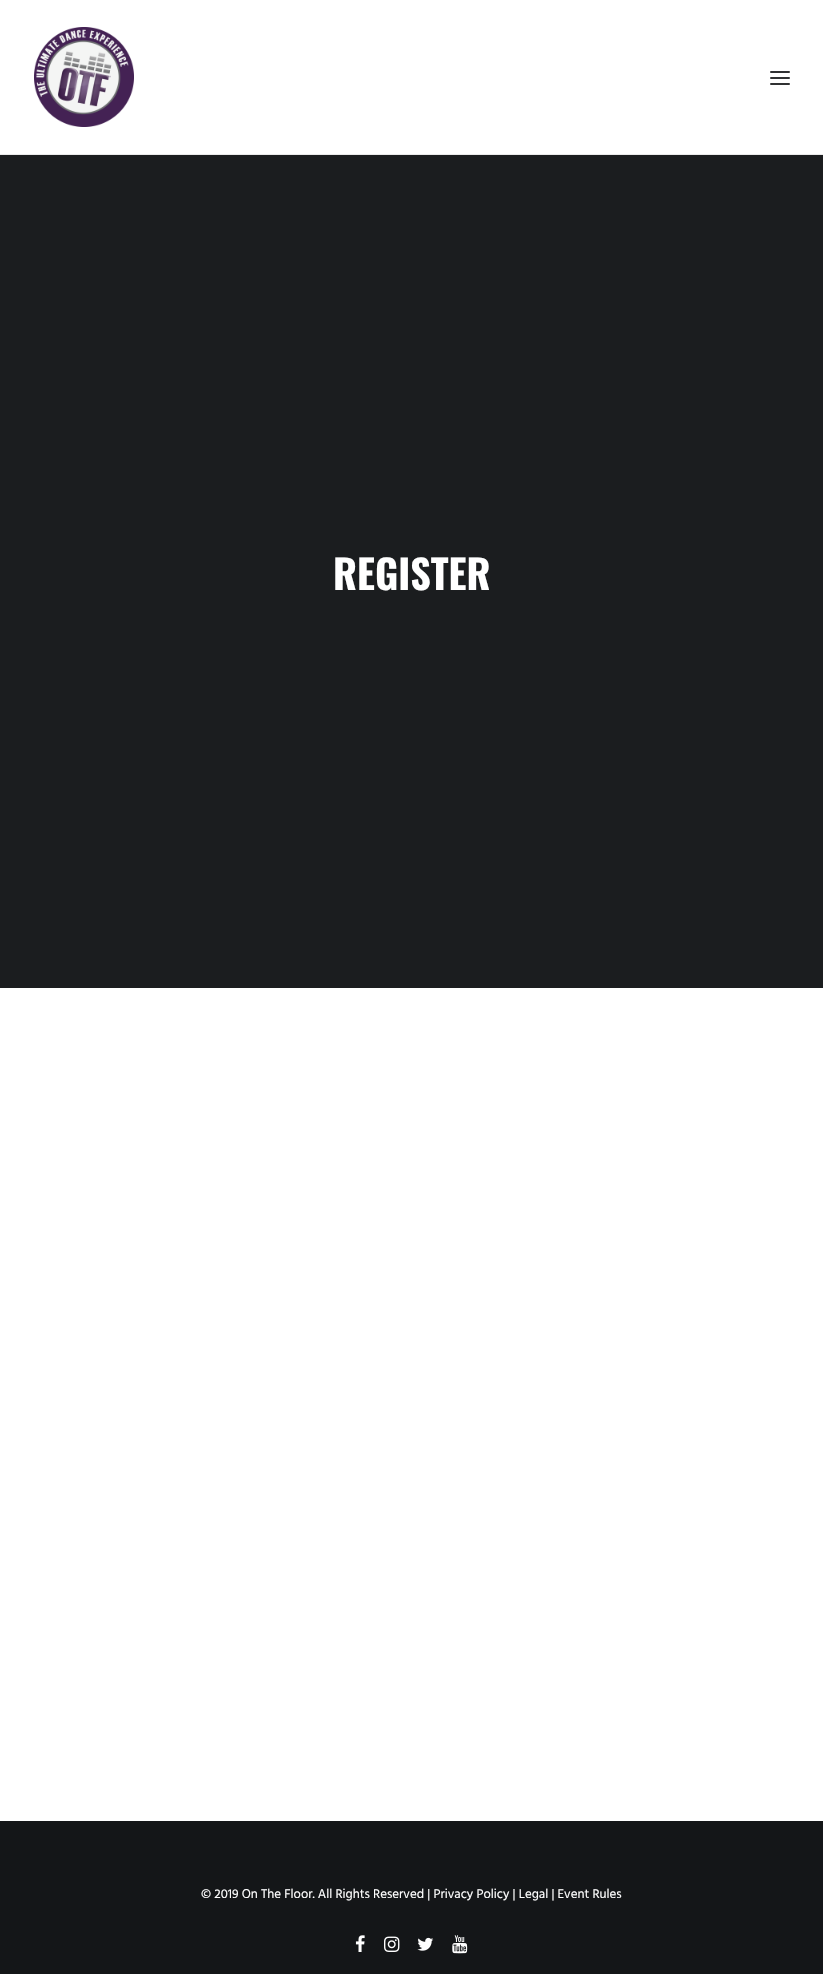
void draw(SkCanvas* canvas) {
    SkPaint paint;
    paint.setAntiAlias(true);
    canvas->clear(0xFFFFFFFF);
    paint.setColor(0xFFEAEAEA);
    canvas->drawRect(SkRect::MakeXYWH(0, 154, 823, 1), paint);
    canvas->drawImageRect(SkImages::DeferredFromEncodedData(SkData::MakeFromFileName("img1.png")), SkRect::MakeXYWH(34, 27, 100, 100), SkSamplingOptions());
    paint.setColor(0xFF303133);
    canvas->drawRoundRect(SkRect::MakeXYWH(770, 77, 20, 2), 1, 1, paint);
    canvas->drawRoundRect(SkRect::MakeXYWH(770, 71, 20, 2), 1, 1, paint);
    canvas->drawRoundRect(SkRect::MakeXYWH(770, 83, 20, 2), 1, 1, paint);
    paint.setColor(0xFF1B1D1F);
    canvas->drawRect(SkRect::MakeXYWH(0, 155, 823, 833), paint);
    SkFont font1(fontMgr->matchFamilyStyle("Oswald", SkFontStyle::Bold()), 40);
    font1.setSubpixel(true);
    paint.setColor(0xFFFFFFFF);
    canvas->drawString("REGISTER", 333, 590, font1, paint);
    paint.setColor(0xFF141618);
    canvas->drawRect(SkRect::MakeXYWH(0, 1821, 823, 153), paint);
    SkFont font2(fontMgr->matchFamilyStyle("Hind", SkFontStyle::Normal()), 13);
    font2.setSubpixel(true);
    paint.setColor(0xFFFFFFFF);
    canvas->drawString("© 2019 On The Floor. All Rights Reserved | Privacy Policy | Legal | Event Rules", 201, 1898, font2, paint);
    canvas->drawImageRect(SkImages::DeferredFromEncodedData(SkData::MakeFromFileName("img2.png")), SkRect::MakeXYWH(355, 1935, 10, 17), SkSamplingOptions());
    canvas->drawImageRect(SkImages::DeferredFromEncodedData(SkData::MakeFromFileName("img3.png")), SkRect::MakeXYWH(384, 1936, 16, 16), SkSamplingOptions());
    canvas->drawImageRect(SkImages::DeferredFromEncodedData(SkData::MakeFromFileName("img4.png")), SkRect::MakeXYWH(417, 1937, 17, 14), SkSamplingOptions());
    canvas->drawImageRect(SkImages::DeferredFromEncodedData(SkData::MakeFromFileName("img5.png")), SkRect::MakeXYWH(452, 1935, 16, 19), SkSamplingOptions());
}
